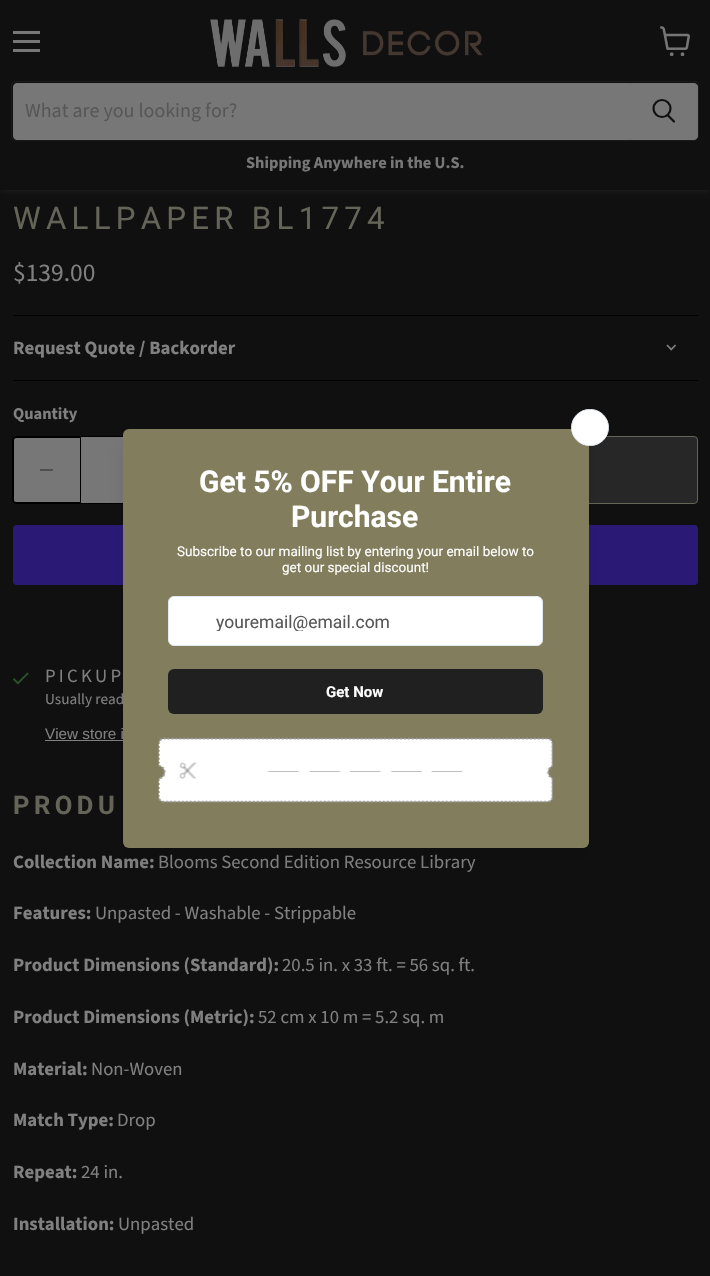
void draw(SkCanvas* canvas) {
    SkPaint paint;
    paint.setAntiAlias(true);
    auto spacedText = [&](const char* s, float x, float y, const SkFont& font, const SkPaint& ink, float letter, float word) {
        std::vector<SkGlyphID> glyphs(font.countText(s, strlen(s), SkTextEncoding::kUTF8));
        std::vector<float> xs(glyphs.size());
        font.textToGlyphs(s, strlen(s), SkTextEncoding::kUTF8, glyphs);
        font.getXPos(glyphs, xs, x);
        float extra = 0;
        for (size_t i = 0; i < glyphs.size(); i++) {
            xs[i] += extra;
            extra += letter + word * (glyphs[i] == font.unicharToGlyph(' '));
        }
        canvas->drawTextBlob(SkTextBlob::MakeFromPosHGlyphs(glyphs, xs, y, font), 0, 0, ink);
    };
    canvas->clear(0xFF101010);
    paint.setColor(0x40484848);
    paint.setMaskFilter(SkMaskFilter::MakeBlur(kNormal_SkBlurStyle, 2.5f));
    canvas->drawRect(SkRect::MakeXYWH(0, 1, 710, 190), paint);
    paint.setMaskFilter(nullptr);
    paint.setColor(0xFF101010);
    canvas->drawRect(SkRect::MakeXYWH(0, 0, 710, 190), paint);
    paint.setColor(0xFF777777);
    canvas->drawRect(SkRect::MakeXYWH(13, 31, 27, 3), paint);
    canvas->drawRect(SkRect::MakeXYWH(13, 40, 27, 3), paint);
    canvas->drawRect(SkRect::MakeXYWH(13, 49, 27, 3), paint);
    canvas->drawImageRect(SkImages::DeferredFromEncodedData(SkData::MakeFromFileName("img1.png")), SkRect::MakeXYWH(660, 26, 30, 30), SkSamplingOptions());
    canvas->drawImageRect(SkImages::DeferredFromEncodedData(SkData::MakeFromFileName("img2.png")), SkRect::MakeXYWH(210, 19, 273, 48), SkSamplingOptions());
    paint.setStyle(SkPaint::kStroke_Style);
    paint.setStrokeWidth(1);
    paint.setColor(0x33484848);
    canvas->drawRoundRect(SkRect::MakeXYWH(11.5f, 81.5f, 687, 59), 4.5f, 4.5f, paint);
    paint.setStyle(SkPaint::kFill_Style);
    paint.setColor(0xFF777777);
    canvas->drawPath(SkPathBuilder().moveTo(17, 83).lineTo(630, 83).lineTo(630, 140).lineTo(17, 140).cubicTo(15, 140, 13, 138, 13, 136).lineTo(13, 87).cubicTo(13, 85, 15, 83, 17, 83).close().detach(), paint);
    SkFont font1(fontMgr->matchFamilyStyle("Source Sans Pro", SkFontStyle::Normal()), 20);
    font1.setSubpixel(true);
    paint.setColor(0xFF575757);
    canvas->drawString("What are you looking for?", 25, 117, font1, paint);
    paint.setColor(0xFF777777);
    canvas->drawPath(SkPathBuilder().moveTo(630.5f, 83.5f).lineTo(694, 83.5f).cubicTo(696, 83.5f, 697.5f, 85, 697.5f, 87).lineTo(697.5f, 136).cubicTo(697.5f, 138, 696, 139.5f, 694, 139.5f).lineTo(630.5f, 139.5f).close().detach(), paint);
    paint.setStyle(SkPaint::kStroke_Style);
    canvas->drawPath(SkPathBuilder().moveTo(630.5f, 83.5f).lineTo(694, 83.5f).cubicTo(696, 83.5f, 697.5f, 85, 697.5f, 87).lineTo(697.5f, 136).cubicTo(697.5f, 138, 696, 139.5f, 694, 139.5f).lineTo(630.5f, 139.5f).close().detach(), paint);
    paint.setStrokeWidth(2.2f);
    paint.setStrokeCap(SkPaint::kRound_Cap);
    paint.setColor(0xFF101010);
    canvas->drawPath(SkPathBuilder().moveTo(674, 121.5f).lineTo(668, 115.5f).detach(), paint);
    paint.setStrokeCap(SkPaint::kButt_Cap);
    canvas->drawCircle(662, 108.5f, 8.5f, paint);
    SkFont font2(fontMgr->matchFamilyStyle("Source Sans Pro", SkFontStyle::Bold()), 16.4f);
    font2.setSubpixel(true);
    paint.setStyle(SkPaint::kFill_Style);
    paint.setColor(0xFF777777);
    canvas->drawString("Shipping Anywhere in the U.S.", 246, 168, font2, paint);
    SkFont font3(fontMgr->matchFamilyStyle("Roboto", SkFontStyle::Normal()), 31.25f);
    font3.setSubpixel(true);
    paint.setColor(0xFF656458);
    spacedText("WALLPAPER BL1774", 13, 229, font3, paint, 5.25f, 0);
    SkFont font4(fontMgr->matchFamilyStyle("Source Sans Pro", SkFontStyle::Normal()), 25.5f);
    font4.setSubpixel(true);
    paint.setColor(0xFF808080);
    canvas->drawString("$139.00", 13, 281, font4, paint);
    paint.setColor(0xFF000000);
    canvas->drawRect(SkRect::MakeXYWH(13, 315, 685, 1), paint);
    canvas->drawRect(SkRect::MakeXYWH(13, 380, 685, 1), paint);
    SkFont font5(fontMgr->matchFamilyStyle("Source Sans Pro", SkFontStyle::Bold()), 18.75f);
    font5.setSubpixel(true);
    paint.setColor(0xFF808080);
    canvas->drawString("Request Quote / Backorder", 13, 354, font5, paint);
    canvas->drawImageRect(SkImages::DeferredFromEncodedData(SkData::MakeFromFileName("img3.png")), SkRect::MakeXYWH(666, 344, 10, 7), SkSamplingOptions());
    canvas->drawString("Quantity", 13, 419, font2, paint);
    paint.setColor(0xFF777777);
    canvas->drawPath(SkPathBuilder().moveTo(17, 436).lineTo(80, 436).lineTo(80, 504).lineTo(17, 504).cubicTo(15, 504, 13, 502, 13, 500).lineTo(13, 440).cubicTo(13, 438, 15, 436, 17, 436).close().detach(), paint);
    paint.setColor(0xFF000000);
    canvas->drawPath(SkPathBuilder(SkPathFillType::kEvenOdd).moveTo(16, 436).lineTo(80, 436).lineTo(80, 504).lineTo(16, 504).cubicTo(14, 504, 12, 502, 12, 500).lineTo(12, 440).cubicTo(12, 438, 14, 436, 16, 436).close().moveTo(16, 438).lineTo(80, 438).lineTo(80, 502).lineTo(16, 502).cubicTo(15, 502, 14, 501, 14, 500).lineTo(14, 440).cubicTo(14, 439, 15, 438, 16, 438).close().detach(), paint);
    paint.setColor(0xFF4F4F4F);
    canvas->drawRect(SkRect::MakeXYWH(40, 469, 13, 2), paint);
    paint.setColor(0xFF777777);
    canvas->drawRect(SkRect::MakeXYWH(81, 437, 42, 66), paint);
    paint.setStyle(SkPaint::kStroke_Style);
    paint.setStrokeWidth(1);
    paint.setColor(0xFF000000);
    canvas->drawRect(SkRect::MakeXYWH(80.5f, 436.5f, 113, 67), paint);
    paint.setStyle(SkPaint::kFill_Style);
    paint.setColor(0xFF272727);
    canvas->drawRoundRect(SkRect::MakeXYWH(283.5f, 436.5f, 414, 67), 3.5f, 3.5f, paint);
    paint.setStyle(SkPaint::kStroke_Style);
    paint.setColor(0xFF656458);
    canvas->drawRoundRect(SkRect::MakeXYWH(283.5f, 436.5f, 414, 67), 3.5f, 3.5f, paint);
    paint.setStyle(SkPaint::kFill_Style);
    paint.setColor(0xFF2A1A76);
    canvas->drawRoundRect(SkRect::MakeXYWH(13, 525, 685, 60), 4, 4, paint);
    canvas->drawImageRect(SkImages::DeferredFromEncodedData(SkData::MakeFromFileName("img4.png")), SkRect::MakeXYWH(13, 672, 16, 13), SkSamplingOptions());
    SkFont font6(fontMgr->matchFamilyStyle("Source Sans Pro", SkFontStyle::Normal()), 18.75f);
    font6.setSubpixel(true);
    paint.setColor(0xFF808080);
    spacedText("PICKUP", 45, 682, font6, paint, 3.25f, 0);
    SkFont font7(fontMgr->matchFamilyStyle("Source Sans Pro", SkFontStyle::Normal()), 15.25f);
    font7.setSubpixel(true);
    canvas->drawString("Usually read", 45, 704, font7, paint);
    SkFont font8(fontMgr->matchFamilyStyle("Liberation Sans", SkFontStyle::Normal()), 15.25f);
    font8.setSubpixel(true);
    canvas->drawString("View store i", 45, 739, font8, paint);
    canvas->drawRect(SkRect::MakeXYWH(45, 740, 78, 1), paint);
    SkFont font9(fontMgr->matchFamilyStyle("Roboto", SkFontStyle::Bold()), 25.5f);
    font9.setSubpixel(true);
    paint.setColor(0xFF656458);
    spacedText("PRODU", 13, 814, font9, paint, 4.5f, 0);
    paint.setColor(0xFF808080);
    canvas->drawString("Collection Name:", 13, 868, font5, paint);
    canvas->drawString("Blooms Second Edition Resource Library", 158, 868, font6, paint);
    canvas->drawString("Features:", 13, 919, font5, paint);
    canvas->drawString("Unpasted - Washable - Strippable", 95, 919, font6, paint);
    canvas->drawString("Product Dimensions (Standard):", 13, 971, font5, paint);
    canvas->drawString("20.5 in. x 33 ft. = 56 sq. ft.", 282, 971, font6, paint);
    canvas->drawString("Product Dimensions (Metric):", 13, 1023, font5, paint);
    canvas->drawString("52 cm x 10 m = 5.2 sq. m", 258, 1023, font6, paint);
    canvas->drawString("Material:", 13, 1075, font5, paint);
    canvas->drawString("Non-Woven", 91, 1075, font6, paint);
    canvas->drawString("Match Type:", 13, 1126, font5, paint);
    canvas->drawString("Drop", 117, 1126, font6, paint);
    canvas->drawString("Repeat:", 13, 1178, font5, paint);
    canvas->drawString("24 in.", 81, 1178, font6, paint);
    canvas->drawString("Installation:", 13, 1230, font5, paint);
    canvas->drawString("Unpasted", 118, 1230, font6, paint);
    paint.setColor(0x1A000000);
    paint.setMaskFilter(SkMaskFilter::MakeBlur(kNormal_SkBlurStyle, 9.5f));
    canvas->drawRoundRect(SkRect::MakeXYWH(126, 445, 459, 411), 2.5f, 2.5f, paint);
    paint.setMaskFilter(nullptr);
    canvas->save();
    canvas->clipRect(SkRect::MakeXYWH(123, 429, 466, 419));
    paint.setColor(0x1F000000);
    paint.setMaskFilter(SkMaskFilter::MakeBlur(kNormal_SkBlurStyle, 12.5f));
    canvas->drawRoundRect(SkRect::MakeXYWH(126, 433, 459, 411), 2.5f, 2.5f, paint);
    paint.setMaskFilter(nullptr);
    canvas->restore();
    paint.setColor(0xFF827D5C);
    canvas->drawRoundRect(SkRect::MakeXYWH(123, 429, 466, 419), 6, 6, paint);
    paint.setColor(0xFFFFFFFF);
    canvas->drawRoundRect(SkRect::MakeXYWH(571.5f, 409.5f, 37, 36), 18, 18, paint);
    paint.setStyle(SkPaint::kStroke_Style);
    paint.setColor(0xFFE2E8F0);
    canvas->drawRoundRect(SkRect::MakeXYWH(571.5f, 409.5f, 37, 36), 18, 18, paint);
    SkFont font10(fontMgr->matchFamilyStyle("Roboto", SkFontStyle::Bold()), 30);
    font10.setSubpixel(true);
    paint.setStyle(SkPaint::kFill_Style);
    paint.setColor(0xFFFFFFFF);
    canvas->drawString("Get 5% OFF Your Entire", 199, 492, font10, paint);
    canvas->drawString("Purchase", 291, 527, font10, paint);
    SkFont font11(fontMgr->matchFamilyStyle("Roboto", SkFontStyle::Normal()), 13.5f);
    font11.setSubpixel(true);
    canvas->drawString("Subscribe to our mailing list by entering your email below to", 177, 556, font11, paint);
    canvas->drawString("get our special discount!", 282, 572, font11, paint);
    canvas->drawRoundRect(SkRect::MakeXYWH(168.5f, 596.5f, 374, 49), 5.5f, 5.5f, paint);
    paint.setStyle(SkPaint::kStroke_Style);
    paint.setColor(0xFFE2E8F0);
    canvas->drawRoundRect(SkRect::MakeXYWH(168.5f, 596.5f, 374, 49), 5.5f, 5.5f, paint);
    canvas->save();
    canvas->clipRect(SkRect::MakeXYWH(171, 611, 368, 20));
    SkFont font12(fontMgr->matchFamilyStyle("Roboto", SkFontStyle::Normal()), 17.5f);
    font12.setSubpixel(true);
    paint.setStyle(SkPaint::kFill_Style);
    paint.setColor(0xFF575757);
    canvas->drawString("youremail@email.com", 216, 628, font12, paint);
    canvas->restore();
    paint.setColor(0xFF202020);
    canvas->drawRoundRect(SkRect::MakeXYWH(168, 669, 375, 45), 6, 6, paint);
    SkFont font13(fontMgr->matchFamilyStyle("Roboto", SkFontStyle::Bold()), 15);
    font13.setSubpixel(true);
    paint.setColor(0xFFFFFFFF);
    canvas->drawString("Get Now", 326, 697, font13, paint);
    canvas->drawImageRect(SkImages::DeferredFromEncodedData(SkData::MakeFromFileName("img5.png")), SkRect::MakeXYWH(158, 737, 395, 66), SkSamplingOptions());
}
